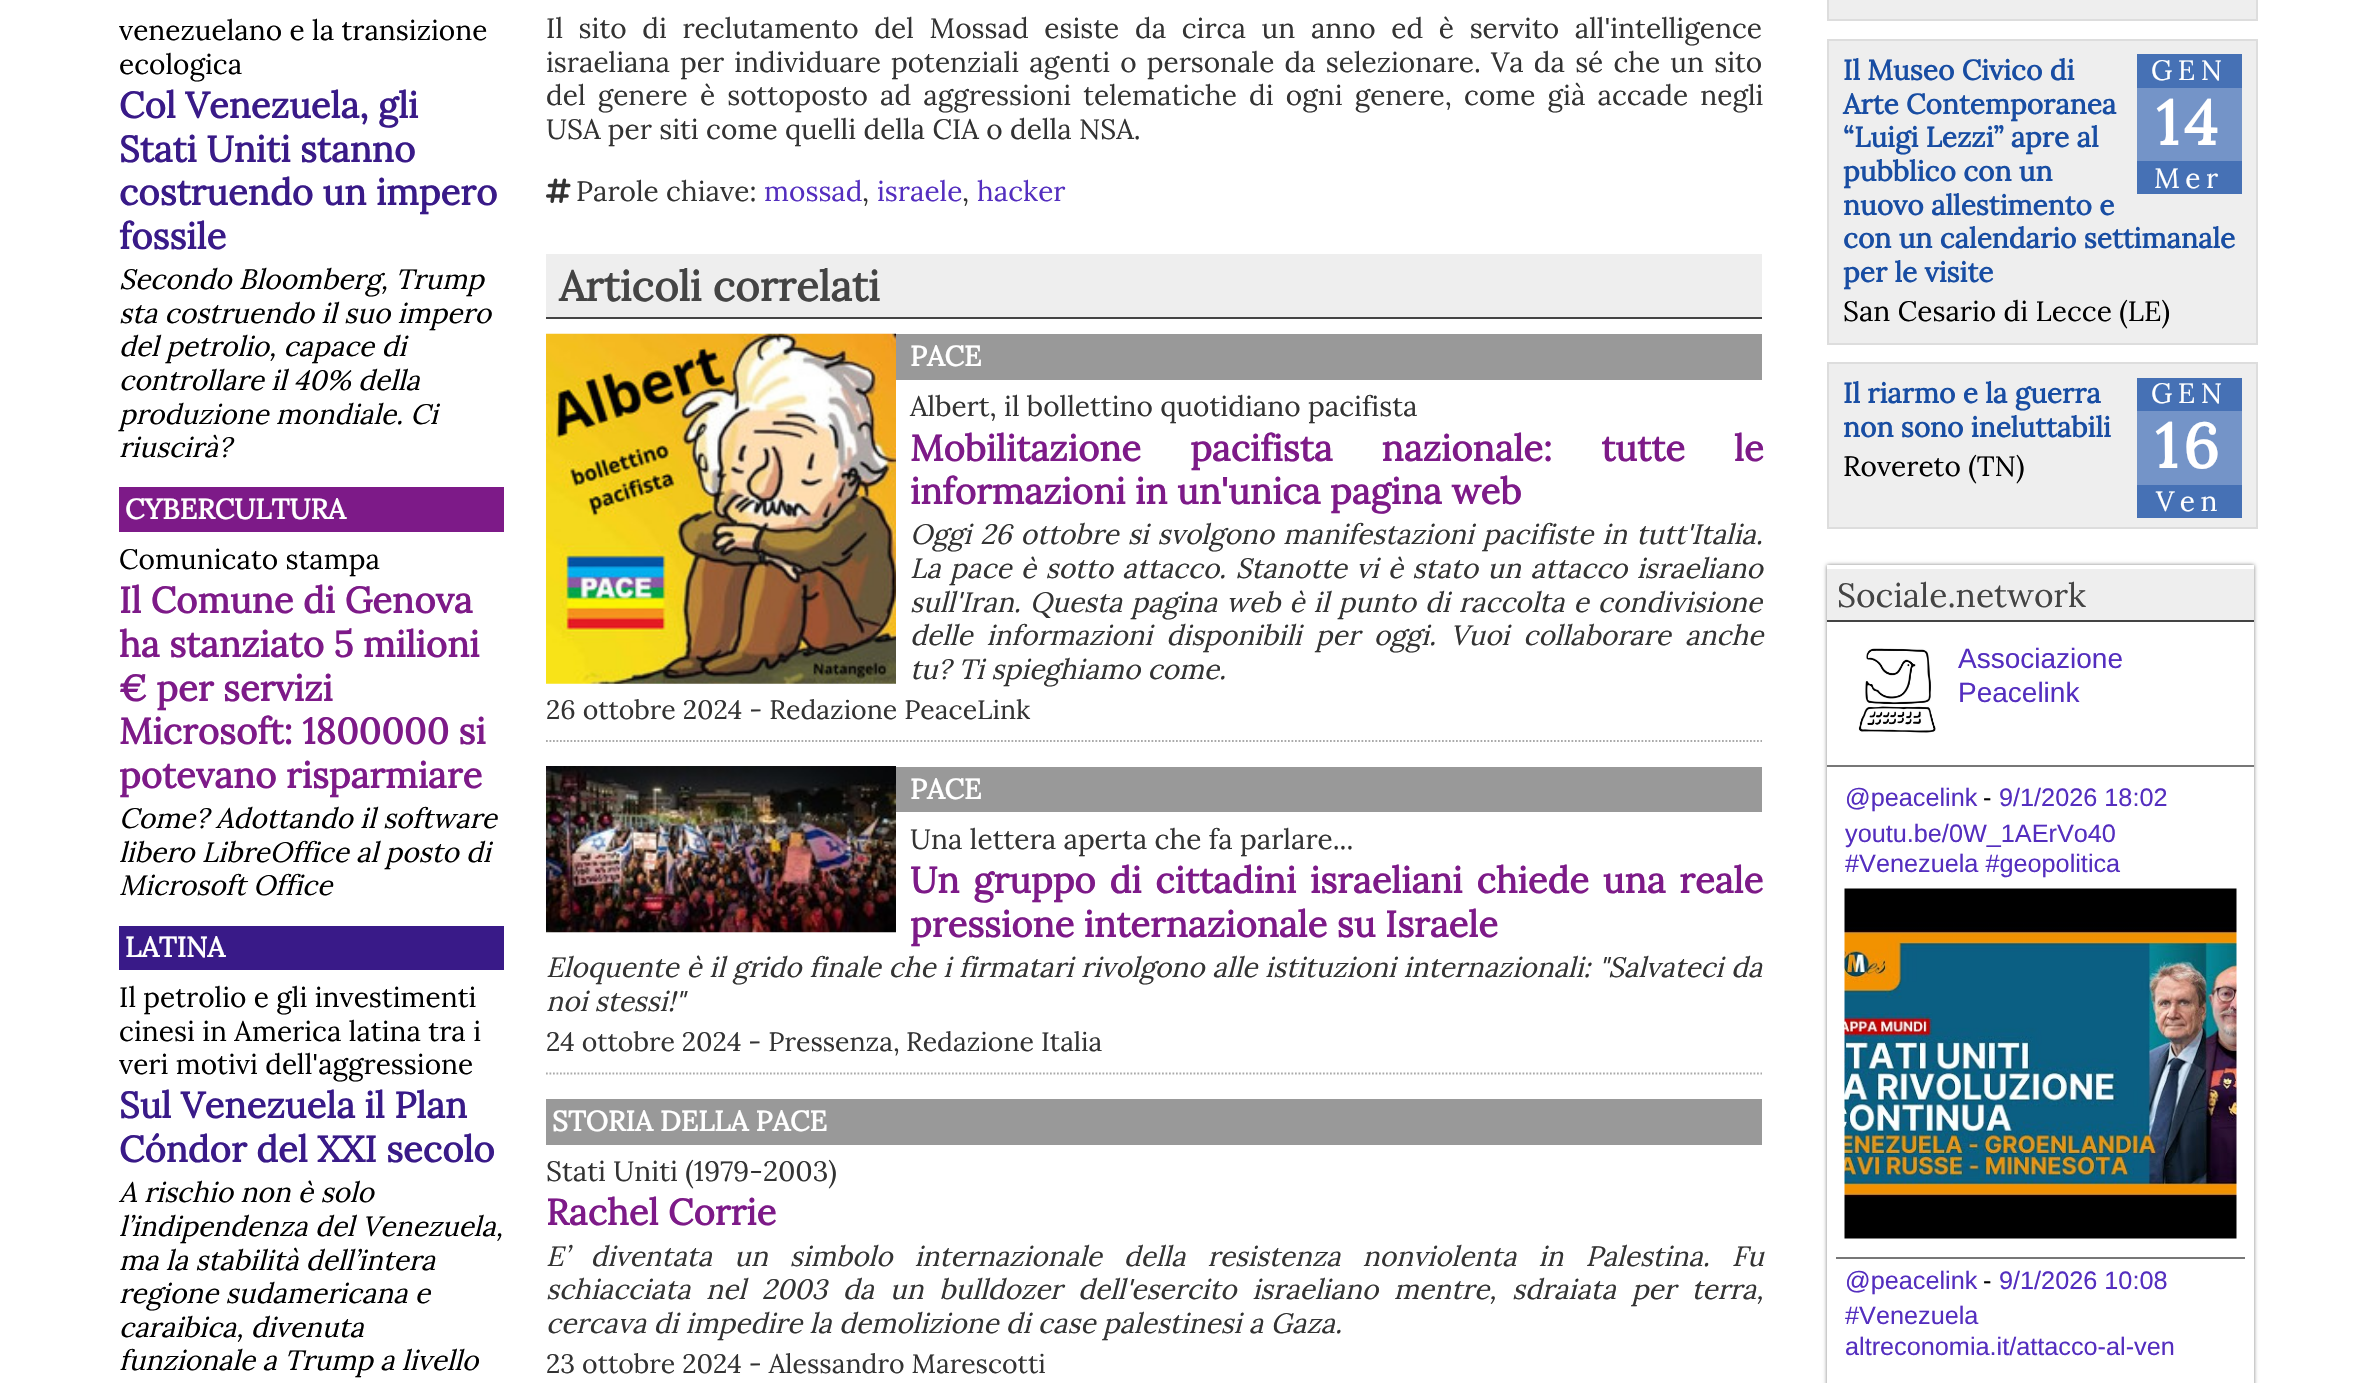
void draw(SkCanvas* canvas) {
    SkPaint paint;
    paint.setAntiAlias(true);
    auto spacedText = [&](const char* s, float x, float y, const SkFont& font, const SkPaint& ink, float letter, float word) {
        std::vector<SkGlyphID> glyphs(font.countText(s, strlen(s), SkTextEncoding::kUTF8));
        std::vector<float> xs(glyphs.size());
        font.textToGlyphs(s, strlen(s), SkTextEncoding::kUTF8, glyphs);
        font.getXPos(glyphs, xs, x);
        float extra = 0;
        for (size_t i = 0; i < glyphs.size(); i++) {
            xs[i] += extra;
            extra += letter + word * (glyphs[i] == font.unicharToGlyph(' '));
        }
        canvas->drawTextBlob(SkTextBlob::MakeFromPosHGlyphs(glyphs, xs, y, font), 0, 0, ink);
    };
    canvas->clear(0xFFFFFFFF);
    SkFont font1(fontMgr->matchFamilyStyle("Lora", SkFontStyle::Normal()), 28);
    font1.setSubpixel(true);
    paint.setColor(0xFF000000);
    canvas->drawString("venezuelano e la transizione", 119, 40, font1, paint);
    canvas->drawString("ecologica", 119, 74, font1, paint);
    SkFont font2(fontMgr->matchFamilyStyle("Lora", SkFontStyle::Bold()), 36.4f);
    font2.setSubpixel(true);
    paint.setColor(0xFF391A88);
    canvas->drawString("Col Venezuela, gli", 119, 118, font2, paint);
    canvas->drawString("Stati Uniti stanno", 119, 162, font2, paint);
    canvas->drawString("costruendo un impero", 119, 205, font2, paint);
    canvas->drawString("fossile", 119, 249, font2, paint);
    SkFont font3(fontMgr->matchFamilyStyle("Lora", SkFontStyle::Italic()), 28);
    font3.setSubpixel(true);
    paint.setColor(0xFF000000);
    canvas->drawString("Secondo Bloomberg, Trump", 119, 289, font3, paint);
    canvas->drawString("sta costruendo il suo impero", 119, 323, font3, paint);
    canvas->drawString("del petrolio, capace di", 119, 356, font3, paint);
    canvas->drawString("controllare il 40% della", 119, 390, font3, paint);
    canvas->drawString("produzione mondiale. Ci", 119, 424, font3, paint);
    canvas->drawString("riuscirà?", 119, 457, font3, paint);
    paint.setColor(0xFF7D1A88);
    canvas->drawRect(SkRect::MakeXYWH(119, 487, 385, 45), paint);
    SkFont font4(fontMgr->matchFamilyStyle("Lora", SkFontStyle::Bold()), 28);
    font4.setSubpixel(true);
    paint.setColor(0xFFFFFFFF);
    canvas->drawString("CYBERCULTURA", 125, 519, font4, paint);
    paint.setColor(0xFF000000);
    canvas->drawString("Comunicato stampa", 119, 569, font1, paint);
    paint.setColor(0xFF7D1A88);
    canvas->drawString("Il Comune di Genova", 119, 613, font2, paint);
    canvas->drawString("ha stanziato 5 milioni", 119, 657, font2, paint);
    canvas->drawString("€ per servizi", 119, 701, font2, paint);
    canvas->drawString("Microsoft: 1800000 si", 119, 744, font2, paint);
    canvas->drawString("potevano risparmiare", 119, 788, font2, paint);
    paint.setColor(0xFF000000);
    canvas->drawString("Come? Adottando il software", 119, 828, font3, paint);
    canvas->drawString("libero LibreOffice al posto di", 119, 862, font3, paint);
    canvas->drawString("Microsoft Office", 119, 895, font3, paint);
    paint.setColor(0xFF391A88);
    canvas->drawRect(SkRect::MakeXYWH(119, 926, 385, 44), paint);
    paint.setColor(0xFFFFFFFF);
    canvas->drawString("LATINA", 125, 957, font4, paint);
    paint.setColor(0xFF000000);
    canvas->drawString("Il petrolio e gli investimenti", 119, 1007, font1, paint);
    canvas->drawString("cinesi in America latina tra i", 119, 1041, font1, paint);
    canvas->drawString("veri motivi dell'aggressione", 119, 1074, font1, paint);
    paint.setColor(0xFF391A88);
    canvas->drawString("Sul Venezuela il Plan", 119, 1118, font2, paint);
    canvas->drawString("Cóndor del XXI secolo", 119, 1162, font2, paint);
    paint.setColor(0xFF000000);
    canvas->drawString("A rischio non è solo", 119, 1202, font3, paint);
    canvas->drawString("l’indipendenza del Venezuela,", 119, 1236, font3, paint);
    canvas->drawString("ma la stabilità dell’intera", 119, 1270, font3, paint);
    canvas->drawString("regione sudamericana e", 119, 1303, font3, paint);
    canvas->drawString("caraibica, divenuta", 119, 1337, font3, paint);
    canvas->drawString("funzionale a Trump a livello", 119, 1370, font3, paint);
    paint.setColor(0xFF333333);
    spacedText("Il sito di reclutamento del Mossad esiste da circa un anno ed è servito all'intelligence", 546, 38, font1, paint, 0, 8.25f);
    spacedText("israeliana per individuare potenziali agenti o personale da selezionare. Va da sé che un sito", 546, 72, font1, paint, 0, 2.75f);
    spacedText("del genere è sottoposto ad aggressioni telematiche di ogni genere, come già accade negli", 546, 105, font1, paint, 0, 4.75f);
    canvas->drawString("USA per siti come quelli della CIA o della NSA.", 546, 139, font1, paint);
    canvas->drawImageRect(SkImages::DeferredFromEncodedData(SkData::MakeFromFileName("img1.png")), SkRect::MakeXYWH(546, 178, 25, 25), SkSamplingOptions());
    canvas->drawString("Parole chiave:", 576, 201, font1, paint);
    paint.setColor(0xFF542EBF);
    canvas->drawString("mossad", 764, 201, font1, paint);
    paint.setColor(0xFF333333);
    canvas->drawString(",", 862, 201, font1, paint);
    paint.setColor(0xFF542EBF);
    canvas->drawString("israele", 877, 201, font1, paint);
    paint.setColor(0xFF333333);
    canvas->drawString(",", 962, 201, font1, paint);
    paint.setColor(0xFF542EBF);
    canvas->drawString("hacker", 977, 201, font1, paint);
    paint.setColor(0xFFEEEEEE);
    canvas->drawRect(SkRect::MakeXYWH(546, 254, 1216, 63), paint);
    paint.setColor(0xFF444444);
    canvas->drawRect(SkRect::MakeXYWH(546, 317, 1216, 2), paint);
    SkFont font5(fontMgr->matchFamilyStyle("Lora", SkFontStyle::Bold()), 42);
    font5.setSubpixel(true);
    canvas->drawString("Articoli correlati", 559, 301, font5, paint);
    paint.setStyle(SkPaint::kStroke_Style);
    paint.setStrokeWidth(1.8f);
    paint.setColor(0xFFAAAAAA);
    paint.setPathEffect(SkDashPathEffect::Make({{1.75f, 1.75f}}, 0));
    canvas->drawPath(SkPathBuilder().moveTo(546, 741).lineTo(1762, 741).detach(), paint);
    paint.setPathEffect(nullptr);
    canvas->drawImageRect(SkImages::DeferredFromEncodedData(SkData::MakeFromFileName("img2.png")), SkRect::MakeXYWH(546, 333, 350, 351), SkSamplingOptions());
    paint.setStyle(SkPaint::kFill_Style);
    paint.setColor(0xFF999999);
    canvas->drawRect(SkRect::MakeXYWH(896, 334, 866, 46), paint);
    paint.setColor(0xFFFFFFFF);
    canvas->drawString("PACE", 910, 366, font4, paint);
    paint.setColor(0xFF333333);
    canvas->drawString("Albert, il bollettino quotidiano pacifista", 910, 416, font1, paint);
    paint.setColor(0xFF7D1A88);
    spacedText("Mobilitazione pacifista nazionale: tutte le", 910, 461, font2, paint, 0, 39.5f);
    canvas->drawString("informazioni in un'unica pagina web", 910, 504, font2, paint);
    paint.setColor(0xFF333333);
    spacedText("Oggi 26 ottobre si svolgono manifestazioni pacifiste in tutt'Italia.", 910, 544, font3, paint, 0, 1.75f);
    spacedText("La pace è sotto attacco. Stanotte vi è stato un attacco israeliano", 910, 578, font3, paint, 0, 2.1f);
    spacedText("sull'Iran. Questa pagina web è il punto di raccolta e condivisione", 910, 612, font3, paint, 0, 1.75f);
    spacedText("delle informazioni disponibili per oggi. Vuoi collaborare anche", 910, 645, font3, paint, 0, 6.75f);
    canvas->drawString("tu? Ti spieghiamo come.", 910, 679, font3, paint);
    SkFont font6(fontMgr->matchFamilyStyle("Lora", SkFontStyle::Normal()), 26.6f);
    font6.setSubpixel(true);
    canvas->drawString("26 ottobre 2024 - Redazione PeaceLink", 546, 719, font6, paint);
    paint.setStyle(SkPaint::kStroke_Style);
    paint.setColor(0xFFAAAAAA);
    paint.setPathEffect(SkDashPathEffect::Make({{1.75f, 1.75f}}, 0));
    canvas->drawPath(SkPathBuilder().moveTo(546, 1073.5f).lineTo(1762, 1073.5f).detach(), paint);
    paint.setPathEffect(nullptr);
    canvas->drawImageRect(SkImages::DeferredFromEncodedData(SkData::MakeFromFileName("img3.png")), SkRect::MakeXYWH(546, 766, 350, 167), SkSamplingOptions());
    paint.setStyle(SkPaint::kFill_Style);
    paint.setColor(0xFF999999);
    canvas->drawRect(SkRect::MakeXYWH(896, 767, 866, 45), paint);
    paint.setColor(0xFFFFFFFF);
    canvas->drawString("PACE", 910, 799, font4, paint);
    paint.setColor(0xFF333333);
    canvas->drawString("Una lettera aperta che fa parlare...", 910, 849, font1, paint);
    paint.setColor(0xFF7D1A88);
    spacedText("Un gruppo di cittadini israeliani chiede una reale", 910, 893, font2, paint, 0, 4.25f);
    canvas->drawString("pressione internazionale su Israele", 910, 937, font2, paint);
    paint.setColor(0xFF333333);
    spacedText("Eloquente è il grido finale che i firmatari rivolgono alle istituzioni internazionali: \"Salvateci da", 546, 977, font3, paint, 0, 0.5f);
    canvas->drawString("noi stessi!\"", 546, 1011, font3, paint);
    canvas->drawString("24 ottobre 2024 - Pressenza,", 546, 1051, font6, paint);
    canvas->drawString("Redazione Italia", 906, 1051, font6, paint);
    paint.setColor(0xFF999999);
    canvas->drawRect(SkRect::MakeXYWH(546, 1099, 1216, 46), paint);
    paint.setColor(0xFFFFFFFF);
    canvas->drawString("STORIA DELLA PACE", 552, 1131, font4, paint);
    paint.setColor(0xFF333333);
    canvas->drawString("Stati Uniti (1979-2003)", 546, 1181, font1, paint);
    paint.setColor(0xFF7D1A88);
    canvas->drawString("Rachel Corrie", 546, 1225, font2, paint);
    paint.setColor(0xFF333333);
    spacedText("E’ diventata un simbolo internazionale della resistenza nonviolenta in Palestina. Fu", 546, 1266, font3, paint, 0, 14.75f);
    spacedText("schiacciata nel 2003 da un bulldozer dell'esercito israeliano mentre, sdraiata per terra,", 546, 1299, font3, paint, 0, 8.4f);
    canvas->drawString("cercava di impedire la demolizione di case palestinesi a Gaza.", 546, 1333, font3, paint);
    canvas->drawString("23 ottobre 2024 - Alessandro Marescotti", 546, 1373, font6, paint);
    paint.setColor(0xFFEEEEEE);
    canvas->drawRect(SkRect::MakeXYWH(1828, -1, 429, 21), paint);
    paint.setStyle(SkPaint::kStroke_Style);
    paint.setStrokeWidth(2);
    paint.setColor(0xFFDDDDDD);
    canvas->drawRect(SkRect::MakeXYWH(1828, -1, 429, 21), paint);
    paint.setStyle(SkPaint::kFill_Style);
    paint.setColor(0xFFEEEEEE);
    canvas->drawRect(SkRect::MakeXYWH(1828, 40, 429, 304), paint);
    paint.setStyle(SkPaint::kStroke_Style);
    paint.setColor(0xFFDDDDDD);
    canvas->drawRect(SkRect::MakeXYWH(1828, 40, 429, 304), paint);
    paint.setStyle(SkPaint::kFill_Style);
    paint.setColor(0xFF184DA3);
    canvas->drawString("Il Museo Civico di", 1843, 80, font4, paint);
    canvas->drawString("Arte Contemporanea", 1843, 114, font4, paint);
    canvas->drawString("“Luigi Lezzi” apre al", 1843, 147, font4, paint);
    canvas->drawString("pubblico con un", 1843, 181, font4, paint);
    canvas->drawString("nuovo allestimento e", 1843, 215, font4, paint);
    canvas->drawString("con un calendario settimanale", 1843, 248, font4, paint);
    canvas->drawString("per le visite", 1843, 282, font4, paint);
    paint.setColor(0xFF4671B5);
    canvas->drawRect(SkRect::MakeXYWH(2137, 54, 105, 34), paint);
    paint.setColor(0xFFFFFFFF);
    spacedText("GEN", 2151, 80, font1, paint, 5.5f, 0);
    paint.setColor(0xFF7494C8);
    canvas->drawRect(SkRect::MakeXYWH(2137, 88, 105, 73), paint);
    SkFont font7(fontMgr->matchFamilyStyle("Lora", SkFontStyle::Bold()), 62);
    font7.setSubpixel(true);
    paint.setColor(0xFFFFFFFF);
    spacedText("14", 2156, 145, font7, paint, 5.5f, 0);
    paint.setColor(0xFF4671B5);
    canvas->drawRect(SkRect::MakeXYWH(2137, 161, 105, 33), paint);
    paint.setColor(0xFFFFFFFF);
    spacedText("Mer", 2154, 188, font1, paint, 5.5f, 0);
    paint.setColor(0xFF000000);
    canvas->drawString("San Cesario di Lecce (LE)", 1843, 321, font1, paint);
    paint.setColor(0xFFEEEEEE);
    canvas->drawRect(SkRect::MakeXYWH(1828, 363, 429, 165), paint);
    paint.setStyle(SkPaint::kStroke_Style);
    paint.setColor(0xFFDDDDDD);
    canvas->drawRect(SkRect::MakeXYWH(1828, 363, 429, 165), paint);
    paint.setStyle(SkPaint::kFill_Style);
    paint.setColor(0xFF184DA3);
    canvas->drawString("Il riarmo e la guerra", 1843, 403, font4, paint);
    canvas->drawString("non sono ineluttabili", 1843, 437, font4, paint);
    paint.setColor(0xFF4671B5);
    canvas->drawRect(SkRect::MakeXYWH(2137, 378, 105, 33), paint);
    paint.setColor(0xFFFFFFFF);
    spacedText("GEN", 2151, 403, font1, paint, 5.5f, 0);
    paint.setColor(0xFF7494C8);
    canvas->drawRect(SkRect::MakeXYWH(2137, 411, 105, 74), paint);
    paint.setColor(0xFFFFFFFF);
    spacedText("16", 2155, 468, font7, paint, 5.5f, 0);
    paint.setColor(0xFF4671B5);
    canvas->drawRect(SkRect::MakeXYWH(2137, 485, 105, 33), paint);
    paint.setColor(0xFFFFFFFF);
    spacedText("Ven", 2156, 511, font1, paint, 5.5f, 0);
    paint.setColor(0xFF000000);
    canvas->drawString("Rovereto (TN)", 1843, 476, font1, paint);
    canvas->save();
    canvas->clipPath(SkPathBuilder(SkPathFillType::kEvenOdd).moveTo(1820, 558).lineTo(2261, 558).lineTo(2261, 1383).lineTo(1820, 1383).close().moveTo(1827, 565).lineTo(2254, 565).lineTo(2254, 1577).lineTo(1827, 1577).close().detach(), true);
    paint.setColor(0x80000000);
    paint.setMaskFilter(SkMaskFilter::MakeBlur(kNormal_SkBlurStyle, 2));
    canvas->drawRect(SkRect::MakeXYWH(1827, 565, 427, 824), paint);
    paint.setMaskFilter(nullptr);
    canvas->restore();
    paint.setColor(0xFFEEEEEE);
    canvas->drawRect(SkRect::MakeXYWH(1827, 569, 427, 51), paint);
    paint.setColor(0xFF444444);
    canvas->drawRect(SkRect::MakeXYWH(1827, 620, 427, 2), paint);
    SkFont font8(fontMgr->matchFamilyStyle("Lora", SkFontStyle::Normal()), 33.5f);
    font8.setSubpixel(true);
    canvas->drawString("Sociale.network", 1837, 607, font8, paint);
    paint.setColor(0xFF777777);
    canvas->drawRect(SkRect::MakeXYWH(1827, 765, 427, 2), paint);
    canvas->drawImageRect(SkImages::DeferredFromEncodedData(SkData::MakeFromFileName("img4.png")), SkRect::MakeXYWH(1858, 648, 78, 85), SkSamplingOptions());
    SkFont font9(fontMgr->matchFamilyStyle("Liberation Sans", SkFontStyle::Normal()), 28);
    font9.setSubpixel(true);
    paint.setColor(0xFF542EBF);
    canvas->drawString("Associazione", 1958, 668, font9, paint);
    canvas->drawString("Peacelink", 1958, 702, font9, paint);
    SkFont font10(fontMgr->matchFamilyStyle("Liberation Sans", SkFontStyle::Normal()), 25.25f);
    font10.setSubpixel(true);
    canvas->drawString("@peacelink", 1845, 806, font10, paint);
    paint.setColor(0xFF000000);
    canvas->drawString("-", 1983, 806, font10, paint);
    paint.setColor(0xFF542EBF);
    canvas->drawString("9/1/2026 18:02", 1999, 806, font10, paint);
    canvas->drawString("youtu.be/0W_1AErVo40", 1845, 842, font10, paint);
    canvas->drawString("#Venezuela #geopolitica", 1845, 872, font10, paint);
    canvas->drawImageRect(SkImages::DeferredFromEncodedData(SkData::MakeFromFileName("img5.png")), SkRect::MakeXYWH(1844, 888, 393, 351), SkSamplingOptions());
    paint.setColor(0xFF777777);
    canvas->drawRect(SkRect::MakeXYWH(1836, 1257, 409, 2), paint);
    paint.setColor(0xFF542EBF);
    canvas->drawString("@peacelink", 1845, 1289, font10, paint);
    paint.setColor(0xFF000000);
    canvas->drawString("-", 1983, 1289, font10, paint);
    paint.setColor(0xFF542EBF);
    canvas->drawString("9/1/2026 10:08", 1999, 1289, font10, paint);
    canvas->drawString("#Venezuela", 1845, 1324, font10, paint);
    canvas->drawString("altreconomia.it/attacco-al-ven", 1845, 1355, font10, paint);
}
